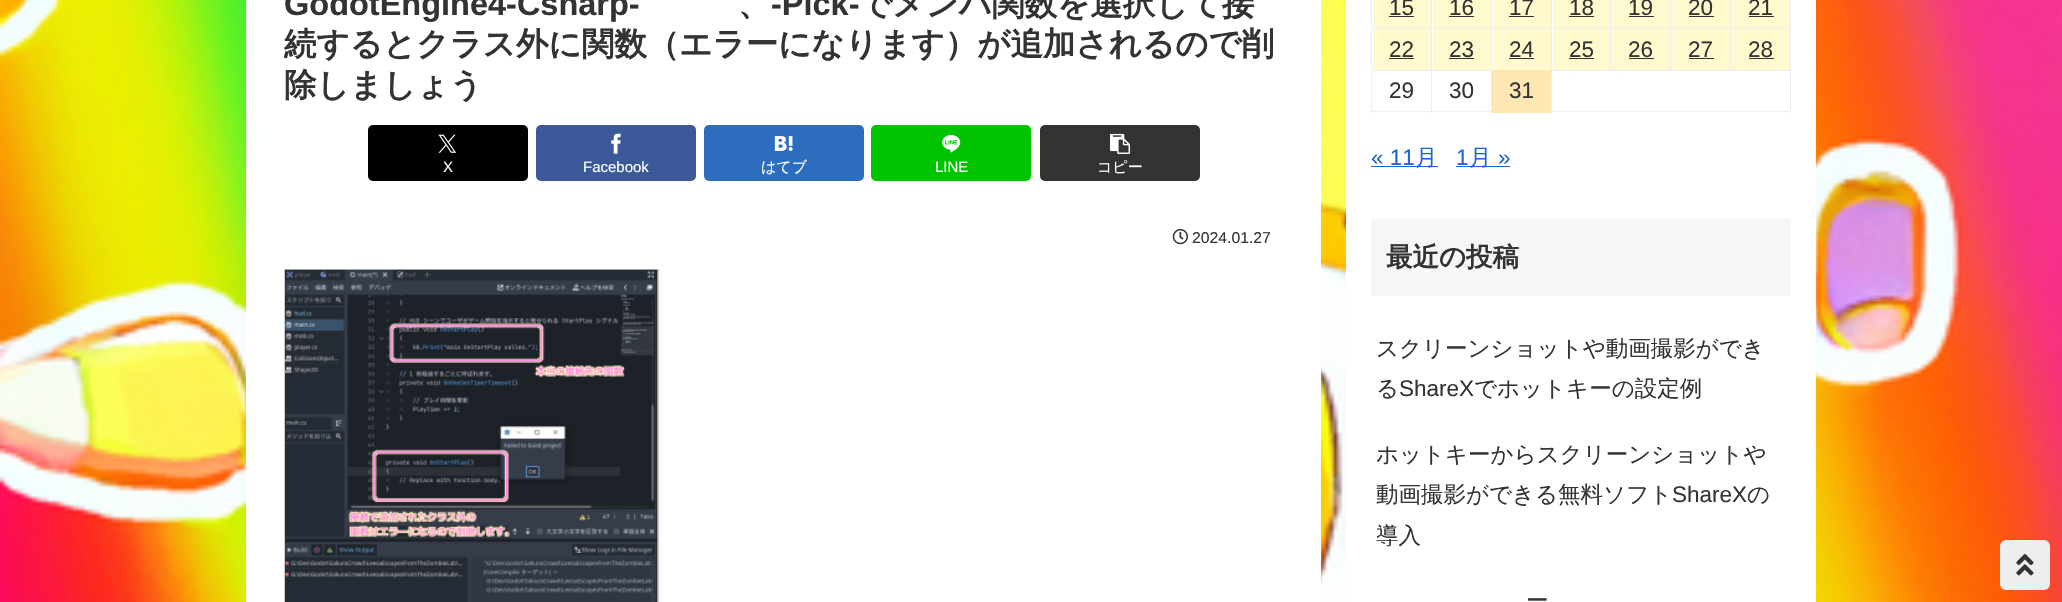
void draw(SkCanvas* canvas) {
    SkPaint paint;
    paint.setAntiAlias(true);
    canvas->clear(0xFFFFFFFF);
    canvas->drawImageRect(SkImages::DeferredFromEncodedData(SkData::MakeFromFileName("img1.png")), SkRect::MakeXYWH(0, 0, 2062, 602), SkSamplingOptions());
    paint.setColor(0xFFFFFFFF);
    canvas->drawRect(SkRect::MakeXYWH(246, 0, 1075, 602), paint);
    SkFont font1(fontMgr->matchFamilyStyle("Liberation Sans", SkFontStyle::Bold()), 32.5f);
    font1.setSubpixel(true);
    paint.setColor(0xFF333333);
    canvas->drawString("GodotEngine4-Csharp-", 284, 15, font1, paint);
    SkFont font2(fontMgr->matchFamilyStyle("WenQuanYi Zen Hei", SkFontStyle::Bold()), 32.5f);
    font2.setSubpixel(true);
    canvas->drawString("、", 738, 15, font2, paint);
    canvas->drawString("-Pick-", 771, 15, font1, paint);
    canvas->drawString("でメンバ関数を選択して接", 859, 15, font2, paint);
    canvas->drawString("続するとクラス外に関数（エラーになります）が追加されるので削", 284, 55, font2, paint);
    canvas->drawString("除しましょう", 284, 96, font2, paint);
    paint.setColor(0xFF000000);
    canvas->drawRoundRect(SkRect::MakeXYWH(368, 125, 160, 56), 5, 5, paint);
    canvas->drawImageRect(SkImages::DeferredFromEncodedData(SkData::MakeFromFileName("img2.png")), SkRect::MakeXYWH(438, 134, 19, 19), SkSamplingOptions());
    SkFont font3(fontMgr->matchFamilyStyle("Liberation Sans", SkFontStyle::Normal()), 15);
    font3.setSubpixel(true);
    paint.setColor(0xFFFFFFFF);
    canvas->drawString("X", 443, 172, font3, paint);
    paint.setColor(0xFF3B5998);
    canvas->drawRoundRect(SkRect::MakeXYWH(536, 125, 160, 56), 5, 5, paint);
    canvas->drawImageRect(SkImages::DeferredFromEncodedData(SkData::MakeFromFileName("img3.png")), SkRect::MakeXYWH(611, 133, 10, 21), SkSamplingOptions());
    paint.setColor(0xFFFFFFFF);
    canvas->drawString("Facebook", 583, 172, font3, paint);
    paint.setColor(0xFF2C6EBD);
    canvas->drawRoundRect(SkRect::MakeXYWH(704, 125, 160, 56), 5, 5, paint);
    canvas->drawImageRect(SkImages::DeferredFromEncodedData(SkData::MakeFromFileName("img4.png")), SkRect::MakeXYWH(774, 136, 19, 15), SkSamplingOptions());
    SkFont font4(fontMgr->matchFamilyStyle("WenQuanYi Zen Hei", SkFontStyle(500, SkFontStyle::kNormal_Width, SkFontStyle::kUpright_Slant)), 15);
    font4.setSubpixel(true);
    paint.setColor(0xFFFFFFFF);
    canvas->drawString("はてブ", 761, 172, font4, paint);
    paint.setColor(0xFF00C300);
    canvas->drawRoundRect(SkRect::MakeXYWH(871, 125, 160, 56), 5, 5, paint);
    canvas->drawImageRect(SkImages::DeferredFromEncodedData(SkData::MakeFromFileName("img5.png")), SkRect::MakeXYWH(942, 135, 19, 18), SkSamplingOptions());
    paint.setColor(0xFFFFFFFF);
    canvas->drawString("LINE", 935, 172, font3, paint);
    paint.setColor(0xFF333333);
    canvas->drawRoundRect(SkRect::MakeXYWH(1040, 125, 160, 56), 5, 5, paint);
    canvas->drawImageRect(SkImages::DeferredFromEncodedData(SkData::MakeFromFileName("img6.png")), SkRect::MakeXYWH(1110, 133, 20, 21), SkSamplingOptions());
    paint.setColor(0xFFFFFFFF);
    canvas->drawString("コピー", 1097, 172, font4, paint);
    canvas->drawImageRect(SkImages::DeferredFromEncodedData(SkData::MakeFromFileName("img7.png")), SkRect::MakeXYWH(1172, 229, 16, 16), SkSamplingOptions());
    SkFont font5(fontMgr->matchFamilyStyle("Liberation Sans", SkFontStyle::Normal()), 15.75f);
    font5.setSubpixel(true);
    paint.setColor(0xFF333333);
    canvas->drawString("2024.01.27", 1192, 243, font5, paint);
    paint.setStyle(SkPaint::kStroke_Style);
    paint.setStrokeWidth(1);
    paint.setColor(0xFFCCCCCC);
    canvas->drawRect(SkRect::MakeXYWH(284.5f, 269.5f, 374, 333), paint);
    canvas->drawImageRect(SkImages::DeferredFromEncodedData(SkData::MakeFromFileName("img8.png")), SkRect::MakeXYWH(285, 269, 373, 333), SkSamplingOptions());
    paint.setStyle(SkPaint::kFill_Style);
    paint.setColor(0xFFFFFFFF);
    canvas->drawRect(SkRect::MakeXYWH(1346, 0, 470, 602), paint);
    paint.setColor(0xFFEEEEEE);
    canvas->drawRect(SkRect::MakeXYWH(1790, 0, 1, 113), paint);
    paint.setColor(0xFFFFFACE);
    canvas->drawRect(SkRect::MakeXYWH(1373, 0, 58, 28), paint);
    SkFont font6(fontMgr->matchFamilyStyle("Liberation Sans", SkFontStyle::Normal()), 22.5f);
    font6.setSubpixel(true);
    paint.setColor(0xFF333333);
    canvas->drawString("15", 1389, 15, font6, paint);
    canvas->drawRect(SkRect::MakeXYWH(1389, 16, 25, 1), paint);
    paint.setColor(0xFFEEEEEE);
    canvas->drawRect(SkRect::MakeXYWH(1730, 28, 61, 1), paint);
    canvas->drawRect(SkRect::MakeXYWH(1551, 70, 240, 1), paint);
    canvas->drawRect(SkRect::MakeXYWH(1730, 28, 1, 43), paint);
    canvas->drawRect(SkRect::MakeXYWH(1670, 28, 61, 1), paint);
    canvas->drawRect(SkRect::MakeXYWH(1670, 28, 1, 43), paint);
    canvas->drawRect(SkRect::MakeXYWH(1610, 28, 61, 1), paint);
    canvas->drawRect(SkRect::MakeXYWH(1610, 28, 1, 43), paint);
    canvas->drawRect(SkRect::MakeXYWH(1551, 28, 60, 1), paint);
    canvas->drawRect(SkRect::MakeXYWH(1551, 111, 240, 1), paint);
    canvas->drawRect(SkRect::MakeXYWH(1551, 70, 1, 43), paint);
    canvas->drawRect(SkRect::MakeXYWH(1551, 28, 1, 43), paint);
    canvas->drawRect(SkRect::MakeXYWH(1491, 28, 62, 1), paint);
    canvas->drawRect(SkRect::MakeXYWH(1431, 70, 62, 1), paint);
    canvas->drawRect(SkRect::MakeXYWH(1491, 28, 1, 43), paint);
    canvas->drawRect(SkRect::MakeXYWH(1431, 28, 62, 1), paint);
    canvas->drawRect(SkRect::MakeXYWH(1431, 111, 62, 1), paint);
    canvas->drawRect(SkRect::MakeXYWH(1431, 70, 1, 43), paint);
    canvas->drawRect(SkRect::MakeXYWH(1371, 70, 62, 1), paint);
    canvas->drawRect(SkRect::MakeXYWH(1431, 28, 1, 43), paint);
    canvas->drawRect(SkRect::MakeXYWH(1371, 28, 62, 1), paint);
    canvas->drawRect(SkRect::MakeXYWH(1431, 0, 1, 29), paint);
    paint.setColor(0xFFFFFACE);
    canvas->drawRect(SkRect::MakeXYWH(1433, 0, 58, 28), paint);
    paint.setColor(0xFF333333);
    canvas->drawString("16", 1449, 15, font6, paint);
    canvas->drawRect(SkRect::MakeXYWH(1449, 16, 25, 1), paint);
    paint.setColor(0xFFEEEEEE);
    canvas->drawRect(SkRect::MakeXYWH(1491, 0, 1, 29), paint);
    paint.setColor(0xFFFFFACE);
    canvas->drawRect(SkRect::MakeXYWH(1493, 0, 58, 28), paint);
    paint.setColor(0xFF333333);
    canvas->drawString("17", 1509, 15, font6, paint);
    canvas->drawRect(SkRect::MakeXYWH(1509, 16, 25, 1), paint);
    paint.setColor(0xFFEEEEEE);
    canvas->drawRect(SkRect::MakeXYWH(1551, 0, 1, 29), paint);
    paint.setColor(0xFFFFFACE);
    canvas->drawRect(SkRect::MakeXYWH(1553, 0, 57, 28), paint);
    paint.setColor(0xFF333333);
    canvas->drawString("18", 1569, 15, font6, paint);
    canvas->drawRect(SkRect::MakeXYWH(1569, 16, 25, 1), paint);
    paint.setColor(0xFFEEEEEE);
    canvas->drawRect(SkRect::MakeXYWH(1610, 0, 1, 29), paint);
    paint.setColor(0xFFFFFACE);
    canvas->drawRect(SkRect::MakeXYWH(1611, 0, 59, 28), paint);
    paint.setColor(0xFF333333);
    canvas->drawString("19", 1628, 15, font6, paint);
    canvas->drawRect(SkRect::MakeXYWH(1629, 16, 25, 1), paint);
    paint.setColor(0xFFEEEEEE);
    canvas->drawRect(SkRect::MakeXYWH(1670, 0, 1, 29), paint);
    paint.setColor(0xFFFFFACE);
    canvas->drawRect(SkRect::MakeXYWH(1671, 0, 59, 28), paint);
    paint.setColor(0xFF333333);
    canvas->drawString("20", 1688, 15, font6, paint);
    canvas->drawRect(SkRect::MakeXYWH(1689, 16, 25, 1), paint);
    paint.setColor(0xFFEEEEEE);
    canvas->drawRect(SkRect::MakeXYWH(1730, 0, 1, 29), paint);
    paint.setColor(0xFFFFFACE);
    canvas->drawRect(SkRect::MakeXYWH(1731, 0, 59, 28), paint);
    paint.setColor(0xFF333333);
    canvas->drawString("21", 1748, 15, font6, paint);
    canvas->drawRect(SkRect::MakeXYWH(1749, 16, 25, 1), paint);
    paint.setColor(0xFFEEEEEE);
    canvas->drawRect(SkRect::MakeXYWH(1371, 111, 62, 1), paint);
    canvas->drawRect(SkRect::MakeXYWH(1371, 70, 1, 43), paint);
    canvas->drawRect(SkRect::MakeXYWH(1371, 0, 1, 71), paint);
    paint.setColor(0xFFFFFACE);
    canvas->drawRect(SkRect::MakeXYWH(1373, 29, 58, 41), paint);
    paint.setColor(0xFF333333);
    canvas->drawString("22", 1389, 57, font6, paint);
    canvas->drawRect(SkRect::MakeXYWH(1389, 58, 25, 1), paint);
    paint.setColor(0xFFFFFACE);
    canvas->drawRect(SkRect::MakeXYWH(1433, 29, 58, 41), paint);
    paint.setColor(0xFF333333);
    canvas->drawString("23", 1449, 57, font6, paint);
    canvas->drawRect(SkRect::MakeXYWH(1449, 58, 25, 1), paint);
    paint.setColor(0xFFFFFACE);
    canvas->drawRect(SkRect::MakeXYWH(1493, 29, 58, 41), paint);
    paint.setColor(0xFF333333);
    canvas->drawString("24", 1509, 57, font6, paint);
    canvas->drawRect(SkRect::MakeXYWH(1509, 58, 25, 1), paint);
    paint.setColor(0xFFFFFACE);
    canvas->drawRect(SkRect::MakeXYWH(1553, 29, 57, 41), paint);
    paint.setColor(0xFF333333);
    canvas->drawString("25", 1569, 57, font6, paint);
    canvas->drawRect(SkRect::MakeXYWH(1569, 58, 25, 1), paint);
    paint.setColor(0xFFFFFACE);
    canvas->drawRect(SkRect::MakeXYWH(1611, 29, 59, 41), paint);
    paint.setColor(0xFF333333);
    canvas->drawString("26", 1628, 57, font6, paint);
    canvas->drawRect(SkRect::MakeXYWH(1629, 58, 25, 1), paint);
    paint.setColor(0xFFFFFACE);
    canvas->drawRect(SkRect::MakeXYWH(1671, 29, 59, 41), paint);
    paint.setColor(0xFF333333);
    canvas->drawString("27", 1688, 57, font6, paint);
    canvas->drawRect(SkRect::MakeXYWH(1689, 58, 25, 1), paint);
    paint.setColor(0xFFFFFACE);
    canvas->drawRect(SkRect::MakeXYWH(1731, 29, 59, 41), paint);
    paint.setColor(0xFF333333);
    canvas->drawString("28", 1748, 57, font6, paint);
    canvas->drawRect(SkRect::MakeXYWH(1749, 58, 25, 1), paint);
    canvas->drawString("29", 1389, 98, font6, paint);
    canvas->drawString("30", 1449, 98, font6, paint);
    paint.setColor(0xFFFFE6B2);
    canvas->drawRect(SkRect::MakeXYWH(1491, 70, 60, 43), paint);
    paint.setColor(0xFF333333);
    canvas->drawString("31", 1509, 98, font6, paint);
    paint.setColor(0xFF1967D2);
    canvas->drawString("« 11", 1371, 165, font6, paint);
    canvas->drawRect(SkRect::MakeXYWH(1371, 166, 67, 1), paint);
    SkFont font7(fontMgr->matchFamilyStyle("WenQuanYi Zen Hei", SkFontStyle(500, SkFontStyle::kNormal_Width, SkFontStyle::kUpright_Slant)), 22.5f);
    font7.setSubpixel(true);
    canvas->drawString("月", 1415, 165, font7, paint);
    canvas->drawString("1", 1456, 165, font6, paint);
    canvas->drawRect(SkRect::MakeXYWH(1456, 166, 54, 1), paint);
    canvas->drawString("月", 1469, 165, font7, paint);
    canvas->drawString("»", 1498, 165, font6, paint);
    paint.setColor(0xFFF5F6F7);
    canvas->drawRoundRect(SkRect::MakeXYWH(1371, 219, 420, 77), 2.5f, 2.5f, paint);
    SkFont font8(fontMgr->matchFamilyStyle("WenQuanYi Zen Hei", SkFontStyle::Bold()), 26.5f);
    font8.setSubpixel(true);
    paint.setColor(0xFF333333);
    canvas->drawString("最近の投稿", 1386, 266, font8, paint);
    canvas->drawString("スクリーンショットや動画撮影ができ", 1376, 356, font7, paint);
    canvas->drawString("る", 1376, 396, font7, paint);
    canvas->drawString("ShareX", 1399, 396, font6, paint);
    canvas->drawString("でホットキーの設定例", 1474, 396, font7, paint);
    canvas->drawString("ホットキーからスクリーンショットや", 1376, 462, font7, paint);
    canvas->drawString("動画撮影ができる無料ソフト", 1376, 502, font7, paint);
    canvas->drawString("ShareX", 1672, 502, font6, paint);
    canvas->drawString("の", 1747, 502, font7, paint);
    canvas->drawString("導入", 1376, 543, font7, paint);
    canvas->drawString("ー", 1526, 608, font7, paint);
    paint.setColor(0xFFEEEEEE);
    canvas->drawRoundRect(SkRect::MakeXYWH(2000, 540, 50, 50), 6, 6, paint);
    canvas->drawImageRect(SkImages::DeferredFromEncodedData(SkData::MakeFromFileName("img9.png")), SkRect::MakeXYWH(2016, 554, 18, 22), SkSamplingOptions());
}
